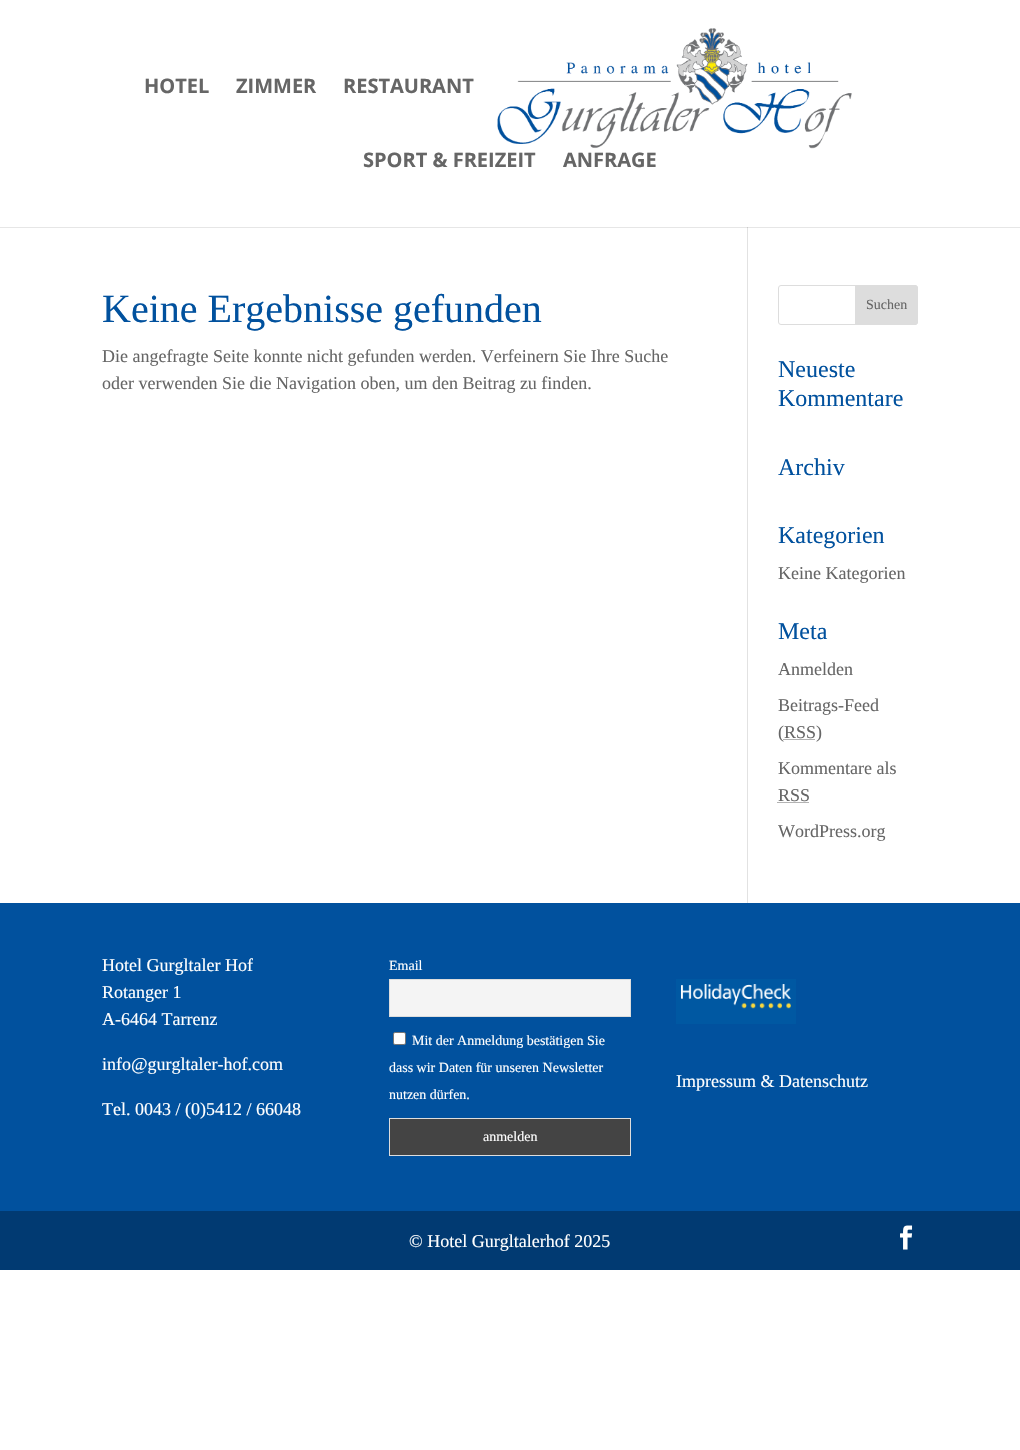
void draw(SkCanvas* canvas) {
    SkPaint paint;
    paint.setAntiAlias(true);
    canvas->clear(0xFFFFFFFF);
    paint.setColor(0xFFE6E6E6);
    canvas->drawRect(SkRect::MakeXYWH(0, 227, 1020, 1), paint);
    SkFont font1(fontMgr->matchFamilyStyle("Open Sans", SkFontStyle::Bold()), 20);
    font1.setSubpixel(true);
    paint.setColor(0xFF666666);
    canvas->drawString("HOTEL", 144, 93, font1, paint);
    canvas->drawString("ZIMMER", 236, 93, font1, paint);
    canvas->drawString("RESTAURANT", 343, 93, font1, paint);
    canvas->drawImageRect(SkImages::DeferredFromEncodedData(SkData::MakeFromFileName("img1.png")), SkRect::MakeXYWH(497, 28, 355, 121), SkSamplingOptions());
    canvas->drawString("SPORT & FREIZEIT", 363, 167, font1, paint);
    canvas->drawString("ANFRAGE", 563, 167, font1, paint);
    paint.setColor(0xFFE2E2E2);
    canvas->drawRect(SkRect::MakeXYWH(747, 227, 1, 676), paint);
    paint.setColor(0xFFCBCBCB);
    canvas->drawRect(SkRect::MakeXYWH(747, 227, 1, 1), paint);
    SkFont font2(fontMgr->matchFamilyStyle("Liberation Serif", SkFontStyle::Normal()), 40);
    font2.setSubpixel(true);
    paint.setColor(0xFF01519E);
    canvas->drawString("Keine Ergebnisse gefunden", 102, 322, font2, paint);
    SkFont font3(fontMgr->matchFamilyStyle("Liberation Serif", SkFontStyle::Normal()), 18);
    font3.setSubpixel(true);
    paint.setColor(0xFF666666);
    canvas->drawString("Die angefragte Seite konnte nicht gefunden werden. Verfeinern Sie Ihre Suche", 102, 362, font3, paint);
    canvas->drawString("oder verwenden Sie die Navigation oben, um den Beitrag zu finden.", 102, 389, font3, paint);
    paint.setStyle(SkPaint::kStroke_Style);
    paint.setStrokeWidth(1);
    paint.setColor(0xFFDDDDDD);
    canvas->drawRoundRect(SkRect::MakeXYWH(778.5f, 285.5f, 139, 39), 2.5f, 2.5f, paint);
    paint.setStyle(SkPaint::kFill_Style);
    canvas->drawPath(SkPathBuilder().moveTo(855.5f, 285.5f).lineTo(915, 285.5f).cubicTo(916.5f, 285.5f, 917.5f, 286.5f, 917.5f, 288).lineTo(917.5f, 322).cubicTo(917.5f, 323.5f, 916.5f, 324.5f, 915, 324.5f).lineTo(855.5f, 324.5f).close().detach(), paint);
    paint.setStyle(SkPaint::kStroke_Style);
    canvas->drawPath(SkPathBuilder().moveTo(855.5f, 285.5f).lineTo(915, 285.5f).cubicTo(916.5f, 285.5f, 917.5f, 286.5f, 917.5f, 288).lineTo(917.5f, 322).cubicTo(917.5f, 323.5f, 916.5f, 324.5f, 915, 324.5f).lineTo(855.5f, 324.5f).close().detach(), paint);
    SkFont font4(fontMgr->matchFamilyStyle("Liberation Serif", SkFontStyle::Normal()), 14);
    font4.setSubpixel(true);
    paint.setStyle(SkPaint::kFill_Style);
    paint.setColor(0xFF666666);
    canvas->drawString("Suchen", 866, 309, font4, paint);
    SkFont font5(fontMgr->matchFamilyStyle("Liberation Serif", SkFontStyle::Normal()), 24);
    font5.setSubpixel(true);
    paint.setColor(0xFF01519E);
    canvas->drawString("Neueste", 778, 377, font5, paint);
    canvas->drawString("Kommentare", 778, 406, font5, paint);
    canvas->drawString("Archiv", 778, 475, font5, paint);
    canvas->drawString("Kategorien", 778, 543, font5, paint);
    paint.setColor(0xFF666666);
    canvas->drawString("Keine Kategorien", 778, 579, font3, paint);
    paint.setColor(0xFF01519E);
    canvas->drawString("Meta", 778, 639, font5, paint);
    paint.setColor(0xFF666666);
    canvas->drawString("Anmelden", 778, 675, font3, paint);
    canvas->drawString("Beitrags-Feed", 778, 711, font3, paint);
    canvas->drawString("(RSS)", 778, 738, font3, paint);
    paint.setStyle(SkPaint::kStroke_Style);
    paint.setPathEffect(SkDashPathEffect::Make({{1, 1}}, 0));
    canvas->drawPath(SkPathBuilder().moveTo(783.5f, 739.5f).lineTo(815.5f, 739.5f).detach(), paint);
    paint.setPathEffect(nullptr);
    paint.setStyle(SkPaint::kFill_Style);
    canvas->drawString("Kommentare als", 778, 774, font3, paint);
    canvas->drawString("RSS", 778, 801, font3, paint);
    paint.setStyle(SkPaint::kStroke_Style);
    paint.setPathEffect(SkDashPathEffect::Make({{1, 1}}, 0));
    canvas->drawPath(SkPathBuilder().moveTo(777.5f, 802.5f).lineTo(809.5f, 802.5f).detach(), paint);
    paint.setPathEffect(nullptr);
    paint.setStyle(SkPaint::kFill_Style);
    canvas->drawString("WordPress.org", 778, 837, font3, paint);
    paint.setColor(0xFF01519E);
    canvas->drawRect(SkRect::MakeXYWH(0, 903, 1020, 308), paint);
    paint.setColor(0xFFFFFFFF);
    canvas->drawString("Hotel Gurgltaler Hof", 102, 971, font3, paint);
    canvas->drawString("Rotanger 1", 102, 998, font3, paint);
    canvas->drawString("A-6464 Tarrenz", 102, 1025, font3, paint);
    canvas->drawString("info@gurgltaler-hof.com", 102, 1070, font3, paint);
    canvas->drawString("Tel. 0043 / (0)5412 / 66048", 102, 1115, font3, paint);
    canvas->drawString("Email", 389, 970, font4, paint);
    paint.setColor(0xFFF4F4F4);
    canvas->drawRect(SkRect::MakeXYWH(389.5f, 979.5f, 241, 37), paint);
    paint.setStyle(SkPaint::kStroke_Style);
    paint.setColor(0xFFDDDDDD);
    canvas->drawRect(SkRect::MakeXYWH(389.5f, 979.5f, 241, 37), paint);
    paint.setStyle(SkPaint::kFill_Style);
    paint.setColor(0xFFFFFFFF);
    canvas->drawRoundRect(SkRect::MakeXYWH(393.5f, 1032.5f, 12, 12), 1.5f, 1.5f, paint);
    paint.setStyle(SkPaint::kStroke_Style);
    paint.setColor(0xFF767676);
    canvas->drawRoundRect(SkRect::MakeXYWH(393.5f, 1032.5f, 12, 12), 1.5f, 1.5f, paint);
    paint.setStyle(SkPaint::kFill_Style);
    paint.setColor(0xFFFFFFFF);
    canvas->drawString("Mit der Anmeldung bestätigen Sie", 412, 1045, font4, paint);
    canvas->drawString("dass wir Daten für unseren Newsletter", 389, 1072, font4, paint);
    canvas->drawString("nutzen dürfen.", 389, 1099, font4, paint);
    paint.setColor(0xFF444444);
    canvas->drawRect(SkRect::MakeXYWH(389.5f, 1118.5f, 241, 37), paint);
    paint.setStyle(SkPaint::kStroke_Style);
    paint.setColor(0xFFDDDDDD);
    canvas->drawRect(SkRect::MakeXYWH(389.5f, 1118.5f, 241, 37), paint);
    paint.setStyle(SkPaint::kFill_Style);
    paint.setColor(0xFFFFFFFF);
    canvas->drawString("anmelden", 483, 1141, font4, paint);
    paint.setColor(0xFF0058A2);
    canvas->drawRect(SkRect::MakeXYWH(676, 979, 120, 45), paint);
    canvas->drawImageRect(SkImages::DeferredFromEncodedData(SkData::MakeFromFileName("img2.png")), SkRect::MakeXYWH(681, 984, 110, 25), SkSamplingOptions());
    paint.setColor(0xFFFFFFFF);
    canvas->drawString("Impressum & Datenschutz", 676, 1087, font3, paint);
    paint.setColor(0xFF013A72);
    canvas->drawRect(SkRect::MakeXYWH(0, 1211, 1020, 59), paint);
    paint.setColor(0xFFFFFFFF);
    canvas->drawString("© Hotel Gurgltalerhof 2025", 409, 1247, font3, paint);
    canvas->drawImageRect(SkImages::DeferredFromEncodedData(SkData::MakeFromFileName("img3.png")), SkRect::MakeXYWH(900, 1225, 13, 25), SkSamplingOptions());
}
